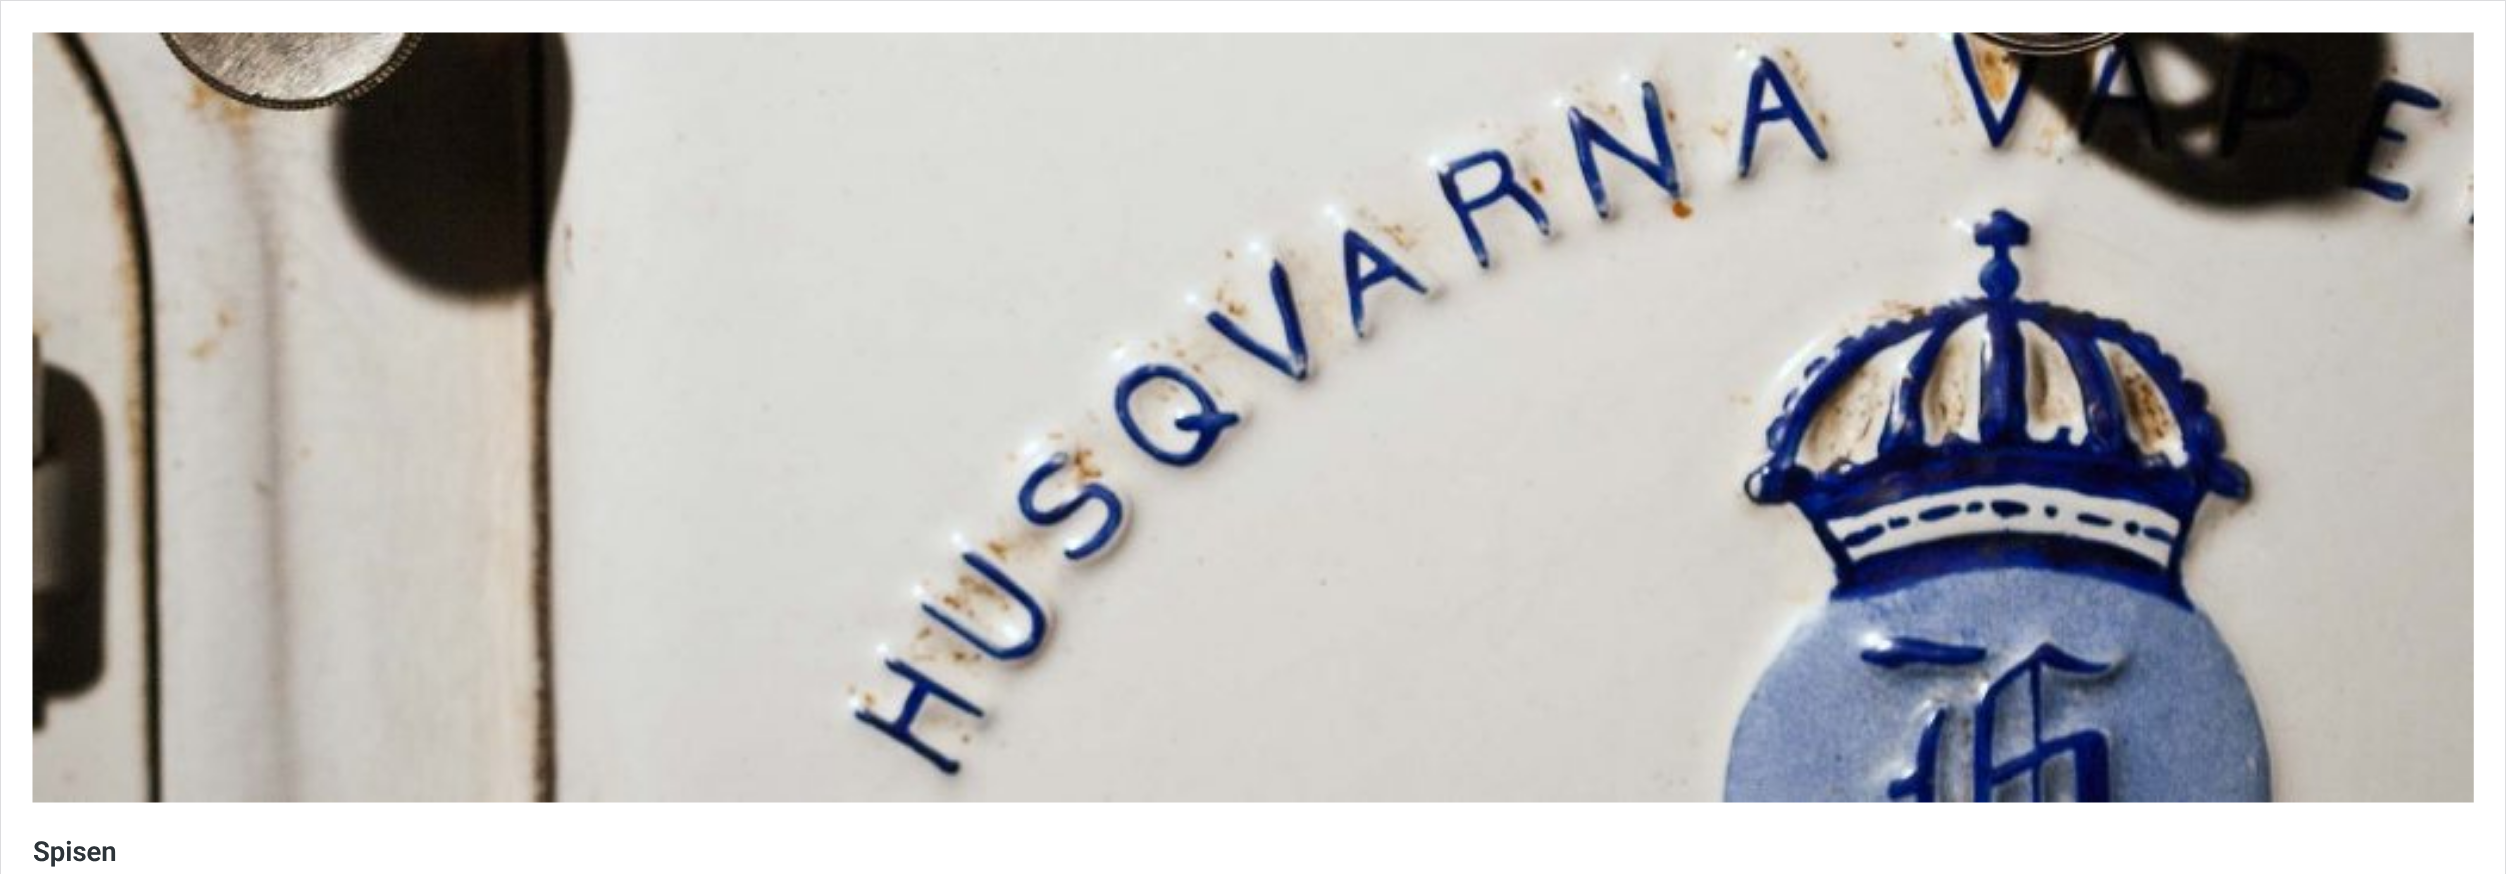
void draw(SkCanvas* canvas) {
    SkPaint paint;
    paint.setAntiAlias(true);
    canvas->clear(0xFFFFFFFF);
    paint.setStyle(SkPaint::kStroke_Style);
    paint.setStrokeWidth(1);
    paint.setColor(0xFFDCDCDE);
    canvas->drawRect(SkRect::MakeXYWH(0.5f, 0.5f, 2505, 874), paint);
    canvas->drawImageRect(SkImages::DeferredFromEncodedData(SkData::MakeFromFileName("img1.png")), SkRect::MakeXYWH(32, 32, 2442, 771), SkSamplingOptions());
    SkFont font1(fontMgr->matchFamilyStyle("Roboto", SkFontStyle(600, SkFontStyle::kNormal_Width, SkFontStyle::kUpright_Slant)), 27.5f);
    font1.setSubpixel(true);
    paint.setStyle(SkPaint::kFill_Style);
    paint.setColor(0xFF2C3338);
    canvas->drawString("Spisen", 33, 861, font1, paint);
}
